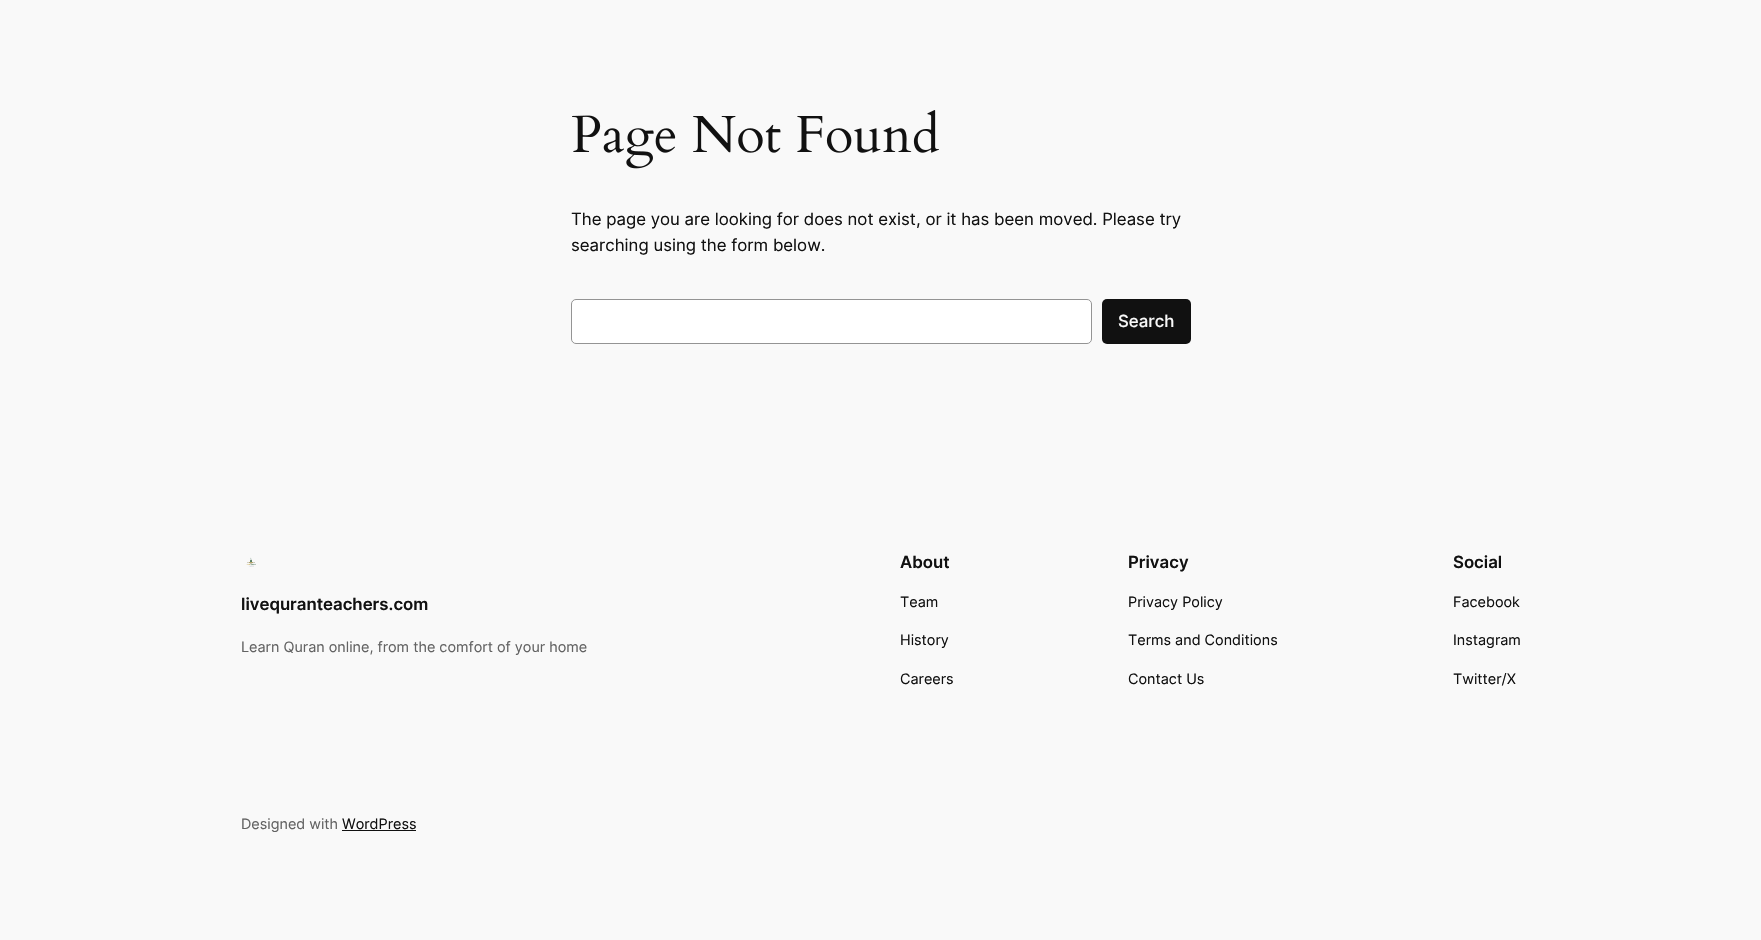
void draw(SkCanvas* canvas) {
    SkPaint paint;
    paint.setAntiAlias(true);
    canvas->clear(0xFFF9F9F9);
    canvas->drawImageRect(SkImages::DeferredFromEncodedData(SkData::MakeFromFileName("img1.png")), SkRect::MakeXYWH(572, 110, 367, 59), SkSamplingOptions());
    SkFont font1(fontMgr->matchFamilyStyle("Inter", SkFontStyle::Normal()), 16.8f);
    font1.setSubpixel(true);
    paint.setColor(0xFF111111);
    canvas->drawString("The page you are looking for does not exist, or it has been moved. Please try", 571, 225, font1, paint);
    canvas->drawString("searching using the form below.", 571, 251, font1, paint);
    paint.setColor(0xFFFFFFFF);
    canvas->drawRoundRect(SkRect::MakeXYWH(571.5f, 299.5f, 520, 44), 4.5f, 4.5f, paint);
    paint.setStyle(SkPaint::kStroke_Style);
    paint.setStrokeWidth(1);
    paint.setColor(0xFF949494);
    canvas->drawRoundRect(SkRect::MakeXYWH(571.5f, 299.5f, 520, 44), 4.5f, 4.5f, paint);
    paint.setStyle(SkPaint::kFill_Style);
    paint.setColor(0xFF111111);
    canvas->drawRoundRect(SkRect::MakeXYWH(1102, 299, 89, 45), 5, 5, paint);
    SkFont font2(fontMgr->matchFamilyStyle("Inter", SkFontStyle(500, SkFontStyle::kNormal_Width, SkFontStyle::kUpright_Slant)), 16.8f);
    font2.setSubpixel(true);
    paint.setColor(0xFFF9F9F9);
    canvas->drawString("Search", 1118, 327, font2, paint);
    canvas->drawImageRect(SkImages::DeferredFromEncodedData(SkData::MakeFromFileName("img2.png")), SkRect::MakeXYWH(246, 557, 10, 10), SkSamplingOptions());
    SkFont font3(fontMgr->matchFamilyStyle("Inter", SkFontStyle(600, SkFontStyle::kNormal_Width, SkFontStyle::kUpright_Slant)), 16.8f);
    font3.setSubpixel(true);
    paint.setColor(0xFF111111);
    canvas->drawString("livequranteachers.com", 241, 610, font3, paint);
    SkFont font4(fontMgr->matchFamilyStyle("Inter", SkFontStyle::Normal()), 14.4f);
    font4.setSubpixel(true);
    paint.setColor(0xFF636363);
    canvas->drawString("Learn Quran online, from the comfort of your home", 241, 652, font4, paint);
    paint.setColor(0xFF111111);
    canvas->drawString("About", 900, 568, font3, paint);
    canvas->drawString("Team", 900, 607, font4, paint);
    canvas->drawString("History", 900, 645, font4, paint);
    canvas->drawString("Careers", 900, 684, font4, paint);
    canvas->drawString("Privacy", 1128, 568, font3, paint);
    canvas->drawString("Privacy Policy", 1128, 607, font4, paint);
    canvas->drawString("Terms and Conditions", 1128, 645, font4, paint);
    canvas->drawString("Contact Us", 1128, 684, font4, paint);
    canvas->drawString("Social", 1453, 568, font3, paint);
    canvas->drawString("Facebook", 1453, 607, font4, paint);
    canvas->drawString("Instagram", 1453, 645, font4, paint);
    canvas->drawString("Twitter/X", 1453, 684, font4, paint);
    paint.setColor(0xFF636363);
    canvas->drawString("Designed with", 241, 829, font4, paint);
    paint.setColor(0xFF111111);
    canvas->drawString("WordPress", 342, 829, font4, paint);
    canvas->drawRect(SkRect::MakeXYWH(342, 830, 74, 1), paint);
}
